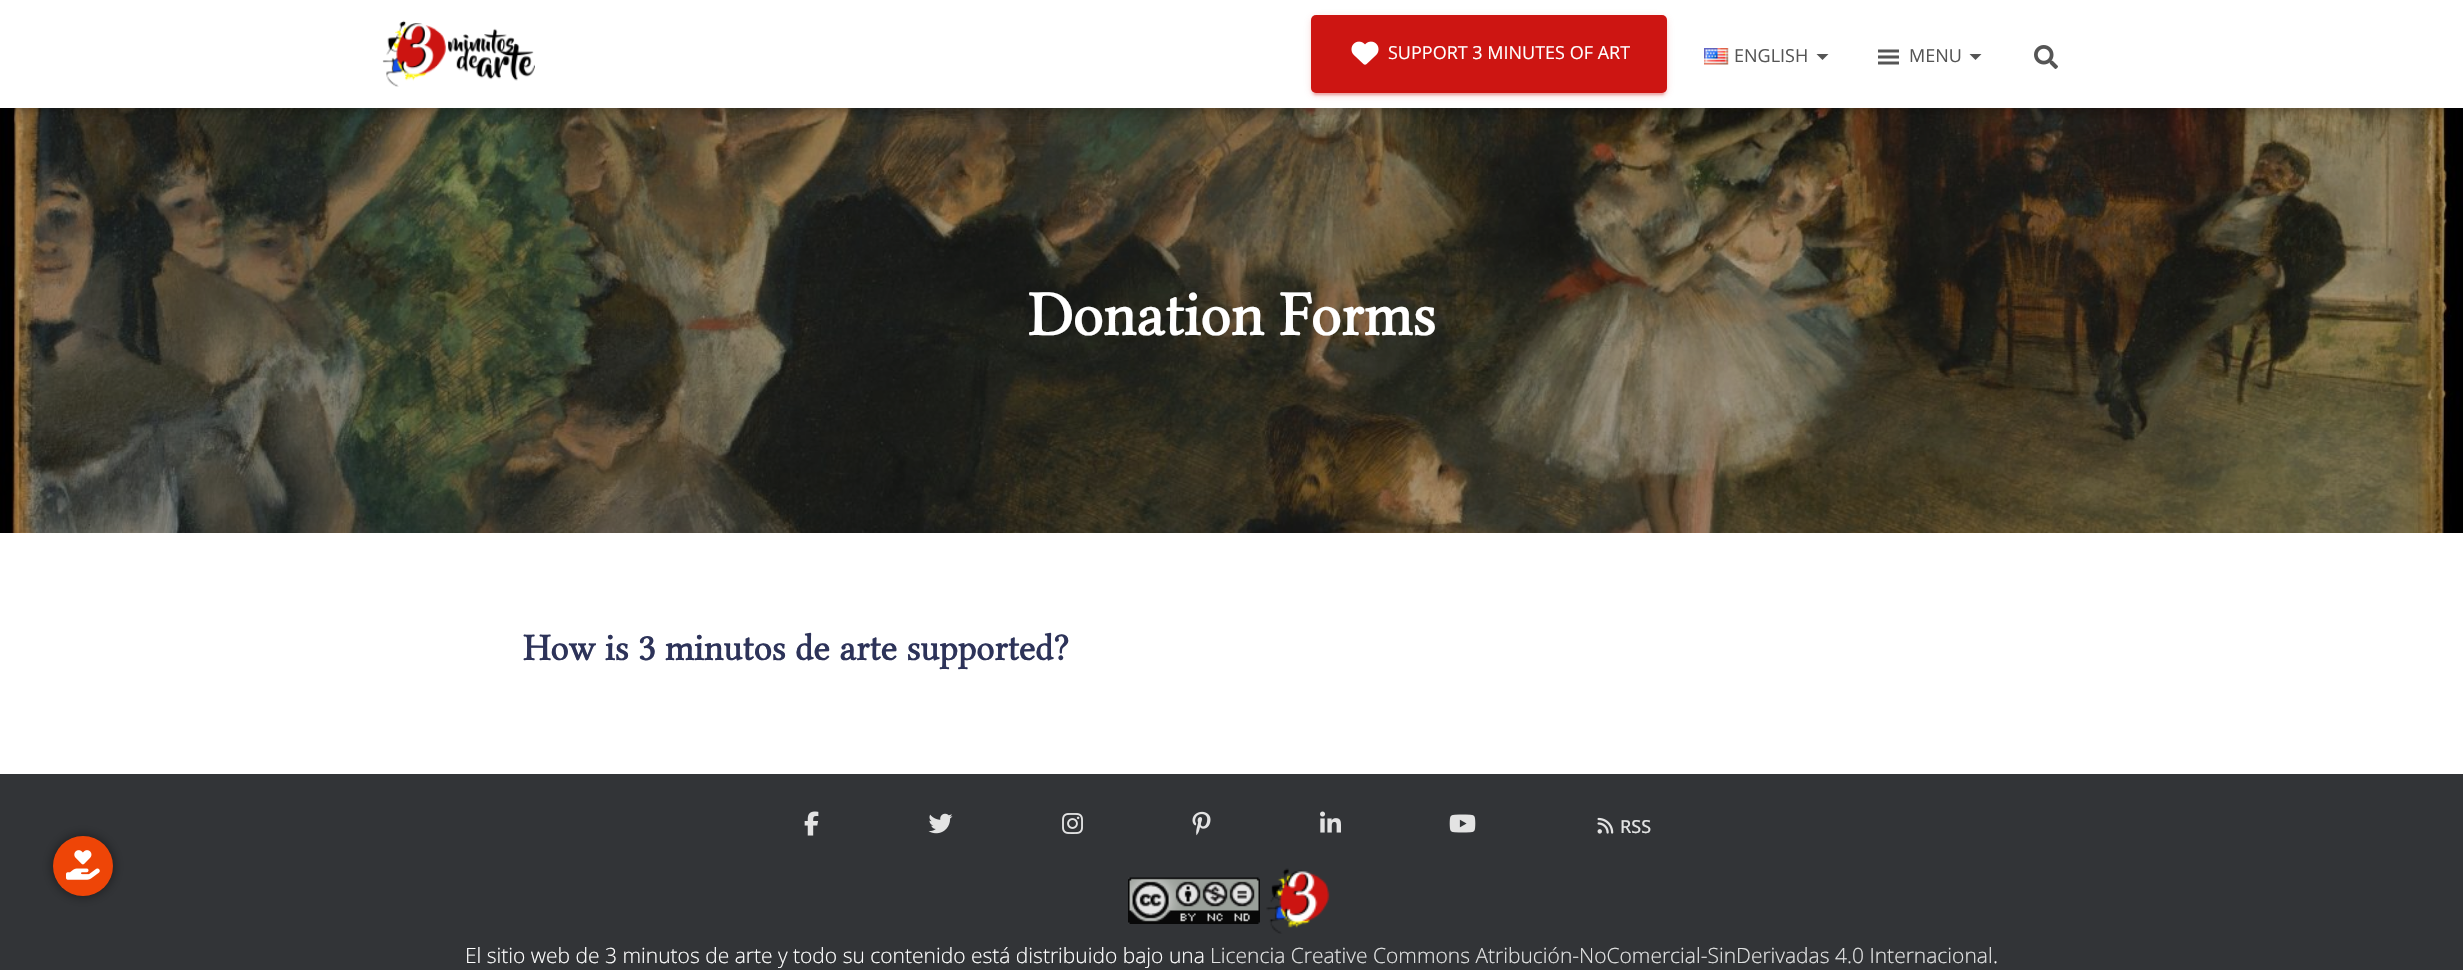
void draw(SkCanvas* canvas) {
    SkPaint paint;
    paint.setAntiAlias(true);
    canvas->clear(0xFF323437);
    paint.setColor(0x80000000);
    paint.setMaskFilter(SkMaskFilter::MakeBlur(kNormal_SkBlurStyle, 6));
    canvas->drawRoundRect(SkRect::MakeXYWH(53, 836, 60, 60), 30, 30, paint);
    paint.setMaskFilter(nullptr);
    paint.setColor(0xFFEE4507);
    canvas->drawCircle(83, 866, 30, paint);
    canvas->drawImageRect(SkImages::DeferredFromEncodedData(SkData::MakeFromFileName("img1.png")), SkRect::MakeXYWH(66, 850, 34, 30), SkSamplingOptions());
    canvas->drawImageRect(SkImages::DeferredFromEncodedData(SkData::MakeFromFileName("img7.png")), SkRect::MakeXYWH(0, 108, 2463, 425), SkSamplingOptions());
    paint.setColor(0x1A000000);
    paint.setMaskFilter(SkMaskFilter::MakeBlur(kNormal_SkBlurStyle, 4));
    canvas->drawRect(SkRect::MakeXYWH(3, 9, 2457, 102), paint);
    paint.setMaskFilter(nullptr);
    paint.setColor(0x1F000000);
    paint.setMaskFilter(SkMaskFilter::MakeBlur(kNormal_SkBlurStyle, 7.5f));
    canvas->drawRect(SkRect::MakeXYWH(0, 2, 2463, 108), paint);
    paint.setMaskFilter(nullptr);
    paint.setColor(0x6B000000);
    paint.setMaskFilter(SkMaskFilter::MakeBlur(kNormal_SkBlurStyle, 7.5f));
    canvas->drawRect(SkRect::MakeXYWH(9, 11, 2445, 90), paint);
    paint.setMaskFilter(nullptr);
    paint.setColor(0xFFFFFFFF);
    canvas->drawRect(SkRect::MakeXYWH(0, 0, 2463, 108), paint);
    canvas->drawImageRect(SkImages::DeferredFromEncodedData(SkData::MakeFromFileName("img2.png")), SkRect::MakeXYWH(382, 20, 153, 67), SkSamplingOptions());
    paint.setColor(0x1FCD1512);
    paint.setMaskFilter(SkMaskFilter::MakeBlur(kNormal_SkBlurStyle, 4));
    canvas->drawRoundRect(SkRect::MakeXYWH(1311, 17, 356, 78), 5, 5, paint);
    paint.setMaskFilter(nullptr);
    paint.setColor(0x33CD1512);
    paint.setMaskFilter(SkMaskFilter::MakeBlur(kNormal_SkBlurStyle, 1));
    canvas->drawRoundRect(SkRect::MakeXYWH(1314, 23, 350, 72), 1.5f, 1.5f, paint);
    paint.setMaskFilter(nullptr);
    paint.setColor(0x24CD1512);
    paint.setMaskFilter(SkMaskFilter::MakeBlur(kNormal_SkBlurStyle, 1.5f));
    canvas->drawRoundRect(SkRect::MakeXYWH(1311, 18, 356, 78), 5, 5, paint);
    paint.setMaskFilter(nullptr);
    paint.setColor(0xFFCD1512);
    canvas->drawRoundRect(SkRect::MakeXYWH(1311, 15, 356, 78), 5, 5, paint);
    canvas->drawImageRect(SkImages::DeferredFromEncodedData(SkData::MakeFromFileName("img3.png")), SkRect::MakeXYWH(1351, 41, 28, 24), SkSamplingOptions());
    SkFont font1(fontMgr->matchFamilyStyle("Open Sans", SkFontStyle::Normal()), 18);
    font1.setSubpixel(true);
    paint.setColor(0xFFFFFFFF);
    canvas->drawString("SUPPORT 3 MINUTES OF ART", 1388, 59, font1, paint);
    canvas->drawImageRect(SkImages::DeferredFromEncodedData(SkData::MakeFromFileName("img4.png")), SkRect::MakeXYWH(1704, 48, 25, 17), SkSamplingOptions());
    paint.setColor(0xFF555555);
    canvas->drawString("ENGLISH", 1734, 62, font1, paint);
    canvas->drawPath(SkPathBuilder().moveTo(1816.5f, 54).lineTo(1828.5f, 54).lineTo(1822.5f, 60).close().detach(), paint);
    canvas->drawImageRect(SkImages::DeferredFromEncodedData(SkData::MakeFromFileName("img5.png")), SkRect::MakeXYWH(1878, 49, 21, 16), SkSamplingOptions());
    canvas->drawString("MENU", 1909, 62, font1, paint);
    canvas->drawPath(SkPathBuilder().moveTo(1969.5f, 54).lineTo(1981.5f, 54).lineTo(1975.5f, 60).close().detach(), paint);
    canvas->drawImageRect(SkImages::DeferredFromEncodedData(SkData::MakeFromFileName("img6.png")), SkRect::MakeXYWH(2034, 45, 24, 24), SkSamplingOptions());
    SkFont font2(fontMgr->matchFamilyStyle("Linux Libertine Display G", SkFontStyle::Bold()), 63);
    font2.setSubpixel(true);
    paint.setColor(0xFFFFFFFF);
    canvas->drawString("Donation Forms", 1028, 335, font2, paint);
    canvas->drawRect(SkRect::MakeXYWH(0, 533, 2463, 241), paint);
    SkFont font3(fontMgr->matchFamilyStyle("Linux Libertine Display G", SkFontStyle::Bold()), 37.5f);
    font3.setSubpixel(true);
    paint.setColor(0xFF2D3359);
    canvas->drawString("How is 3 minutos de arte supported?", 523, 660, font3, paint);
    canvas->drawImageRect(SkImages::DeferredFromEncodedData(SkData::MakeFromFileName("img8.png")), SkRect::MakeXYWH(804, 811, 15, 25), SkSamplingOptions());
    canvas->drawImageRect(SkImages::DeferredFromEncodedData(SkData::MakeFromFileName("img9.png")), SkRect::MakeXYWH(928, 813, 25, 21), SkSamplingOptions());
    canvas->drawImageRect(SkImages::DeferredFromEncodedData(SkData::MakeFromFileName("img10.png")), SkRect::MakeXYWH(1062, 813, 21, 21), SkSamplingOptions());
    canvas->drawImageRect(SkImages::DeferredFromEncodedData(SkData::MakeFromFileName("img11.png")), SkRect::MakeXYWH(1192, 811, 19, 25), SkSamplingOptions());
    canvas->drawImageRect(SkImages::DeferredFromEncodedData(SkData::MakeFromFileName("img12.png")), SkRect::MakeXYWH(1320, 811, 21, 22), SkSamplingOptions());
    canvas->drawImageRect(SkImages::DeferredFromEncodedData(SkData::MakeFromFileName("img13.png")), SkRect::MakeXYWH(1449, 814, 27, 19), SkSamplingOptions());
    canvas->drawImageRect(SkImages::DeferredFromEncodedData(SkData::MakeFromFileName("img14.png")), SkRect::MakeXYWH(1597, 817, 17, 17), SkSamplingOptions());
    SkFont font4(fontMgr->matchFamilyStyle("Open Sans", SkFontStyle(500, SkFontStyle::kNormal_Width, SkFontStyle::kUpright_Slant)), 18);
    font4.setSubpixel(true);
    paint.setColor(0xFFE2E3E3);
    canvas->drawString("RSS", 1620, 833, font4, paint);
    canvas->drawImageRect(SkImages::DeferredFromEncodedData(SkData::MakeFromFileName("img15.png")), SkRect::MakeXYWH(1128, 877, 132, 47), SkSamplingOptions());
    canvas->drawImageRect(SkImages::DeferredFromEncodedData(SkData::MakeFromFileName("img16.png")), SkRect::MakeXYWH(1266, 868, 64, 66), SkSamplingOptions());
    SkFont font5(fontMgr->matchFamilyStyle("Open Sans", SkFontStyle(300, SkFontStyle::kNormal_Width, SkFontStyle::kUpright_Slant)), 21);
    font5.setSubpixel(true);
    paint.setColor(0xFFFFFFFF);
    canvas->drawString("El sitio web de 3 minutos de arte y todo su contenido está distribuido bajo una", 465, 963, font5, paint);
    paint.setColor(0xFFE2E3E3);
    canvas->drawString("Licencia Creative Commons Atribución-NoComercial-SinDerivadas 4.0 Internacional", 1210, 963, font5, paint);
    paint.setColor(0xFFFFFFFF);
    canvas->drawString(".", 1993, 963, font5, paint);
}
